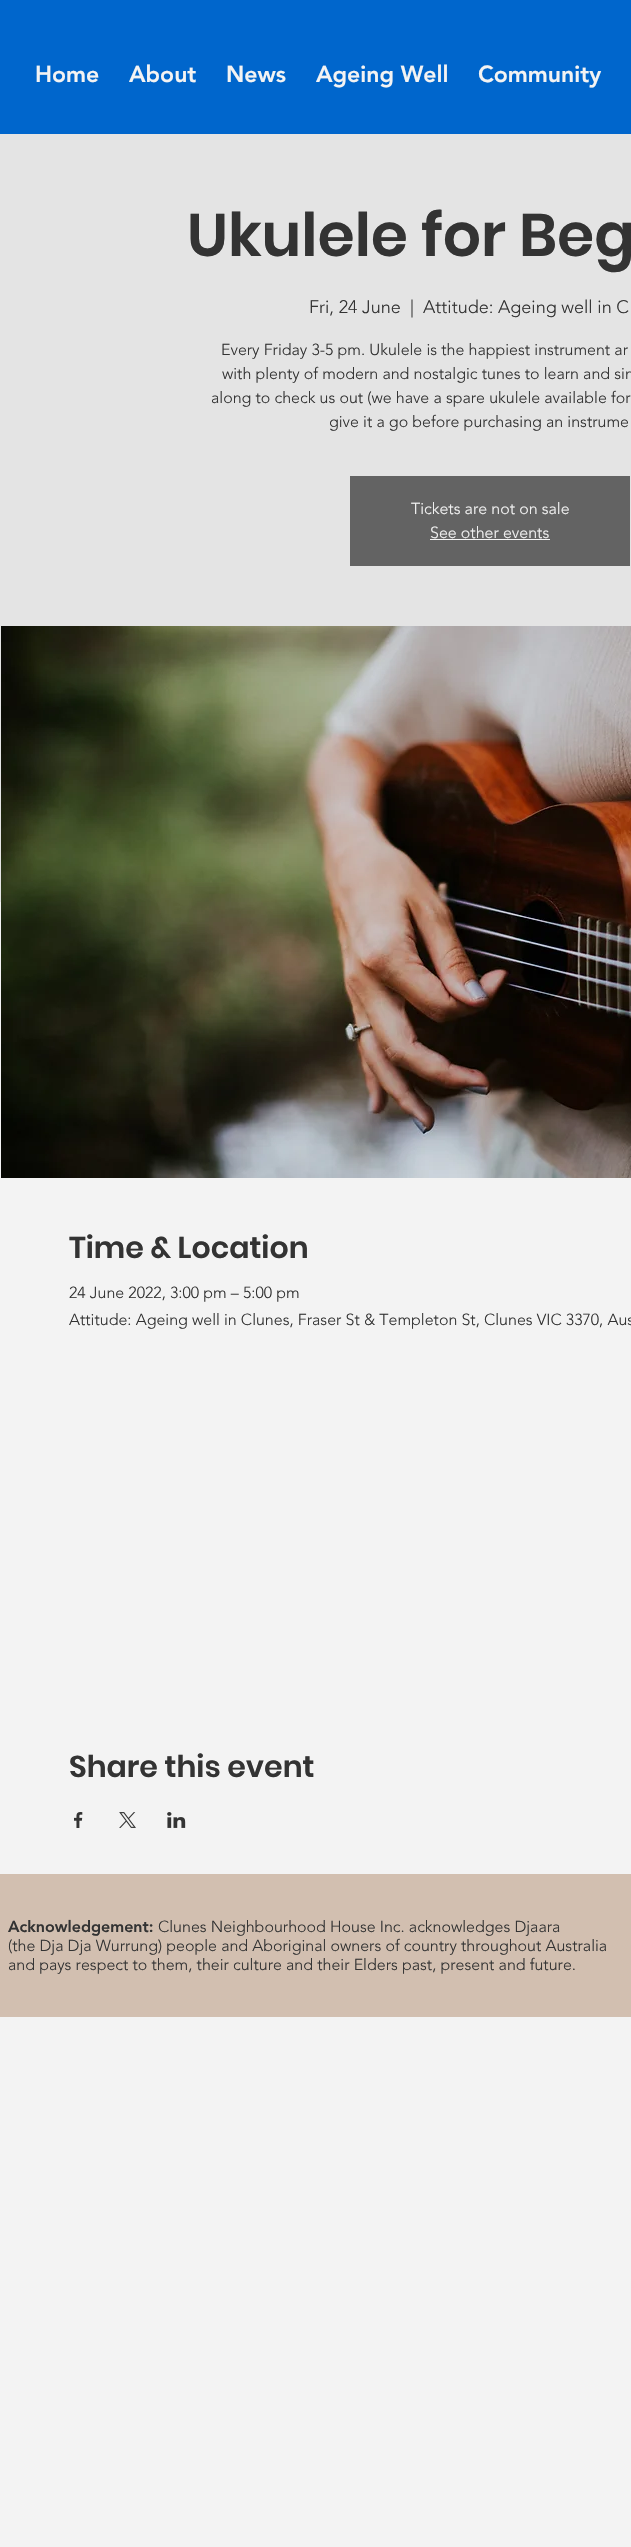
void draw(SkCanvas* canvas) {
    SkPaint paint;
    paint.setAntiAlias(true);
    canvas->clear(0xFFF3F3F3);
    paint.setColor(0xFF0066CC);
    canvas->drawRect(SkRect::MakeXYWH(0, 0, 631, 134), paint);
    SkFont font1(fontMgr->matchFamilyStyle("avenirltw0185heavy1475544", SkFontStyle(900, SkFontStyle::kNormal_Width, SkFontStyle::kUpright_Slant)), 23);
    font1.setSubpixel(true);
    paint.setColor(0xFFF3F3F3);
    canvas->drawString("Home", 35, 82, font1, paint);
    canvas->drawString("About", 129, 82, font1, paint);
    canvas->drawString("News", 226, 82, font1, paint);
    canvas->drawString("Ageing Well", 316, 82, font1, paint);
    canvas->drawString("Community", 478, 82, font1, paint);
    paint.setColor(0xFFE4E4E4);
    canvas->drawRect(SkRect::MakeXYWH(0, 134, 631, 768), paint);
    SkFont font2(fontMgr->matchFamilyStyle("Poppins", SkFontStyle(600, SkFontStyle::kNormal_Width, SkFontStyle::kUpright_Slant)), 60);
    font2.setSubpixel(true);
    paint.setColor(0xFF333333);
    canvas->drawString("Ukulele for Beg", 187, 256, font2, paint);
    SkFont font3(fontMgr->matchFamilyStyle("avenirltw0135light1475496", SkFontStyle(300, SkFontStyle::kNormal_Width, SkFontStyle::kUpright_Slant)), 18);
    font3.setSubpixel(true);
    canvas->drawString("Fri, 24 June", 309, 313, font3, paint);
    canvas->drawString("|", 410, 313, font3, paint);
    canvas->drawString("Attitude: Ageing well in C", 423, 313, font3, paint);
    SkFont font4(fontMgr->matchFamilyStyle("avenirltw0135light1475496", SkFontStyle(300, SkFontStyle::kNormal_Width, SkFontStyle::kUpright_Slant)), 16);
    font4.setSubpixel(true);
    canvas->drawString("Every Friday 3-5 pm. Ukulele is the happiest instrument ar", 221, 355, font4, paint);
    canvas->drawString("with plenty of modern and nostalgic tunes to learn and sin", 222, 379, font4, paint);
    canvas->drawString("along to check us out (we have a spare ukulele available for", 211, 403, font4, paint);
    canvas->drawString("give it a go before purchasing an instrume", 329, 427, font4, paint);
    paint.setColor(0xFF636363);
    canvas->drawRect(SkRect::MakeXYWH(350, 476, 280, 90), paint);
    paint.setColor(0xFFF3F3F3);
    canvas->drawString("Tickets are not on sale", 411, 514, font4, paint);
    canvas->drawString("See other events", 430, 538, font4, paint);
    canvas->drawRect(SkRect::MakeXYWH(430, 539, 120, 1), paint);
    canvas->drawImageRect(SkImages::DeferredFromEncodedData(SkData::MakeFromFileName("img1.png")), SkRect::MakeXYWH(1, 626, 630, 552), SkSamplingOptions());
    SkFont font5(fontMgr->matchFamilyStyle("Poppins", SkFontStyle(600, SkFontStyle::kNormal_Width, SkFontStyle::kUpright_Slant)), 30);
    font5.setSubpixel(true);
    paint.setColor(0xFF333333);
    canvas->drawString("Time & Location", 69, 1258, font5, paint);
    canvas->drawString("24 June 2022, 3:00 pm – 5:00 pm", 69, 1298, font4, paint);
    canvas->drawString("Attitude: Ageing well in Clunes, Fraser St & Templeton St, Clunes VIC 3370, Aus", 69, 1325, font4, paint);
    canvas->drawString("Share this event", 69, 1777, font5, paint);
    canvas->drawImageRect(SkImages::DeferredFromEncodedData(SkData::MakeFromFileName("img2.png")), SkRect::MakeXYWH(74, 1812, 9, 16), SkSamplingOptions());
    canvas->drawImageRect(SkImages::DeferredFromEncodedData(SkData::MakeFromFileName("img3.png")), SkRect::MakeXYWH(119, 1812, 17, 16), SkSamplingOptions());
    canvas->drawImageRect(SkImages::DeferredFromEncodedData(SkData::MakeFromFileName("img4.png")), SkRect::MakeXYWH(167, 1812, 19, 16), SkSamplingOptions());
    paint.setColor(0xFFD2BFB0);
    canvas->drawRect(SkRect::MakeXYWH(0, 1874, 631, 143), paint);
    SkFont font6(fontMgr->matchFamilyStyle("avenirltw0185heavy1475544", SkFontStyle(900, SkFontStyle::kNormal_Width, SkFontStyle::kUpright_Slant)), 16);
    font6.setSubpixel(true);
    paint.setColor(0xFF333333);
    canvas->drawString("Acknowledgement:", 8, 1932, font6, paint);
    canvas->drawString("Clunes Neighbourhood House Inc. acknowledges Djaara", 158, 1932, font4, paint);
    canvas->drawString("(the Dja Dja Wurrung) people and Aboriginal owners of country throughout Australia", 8, 1951, font4, paint);
    canvas->drawString("and pays respect to them, their culture and their Elders past, present and future.", 8, 1970, font4, paint);
}
